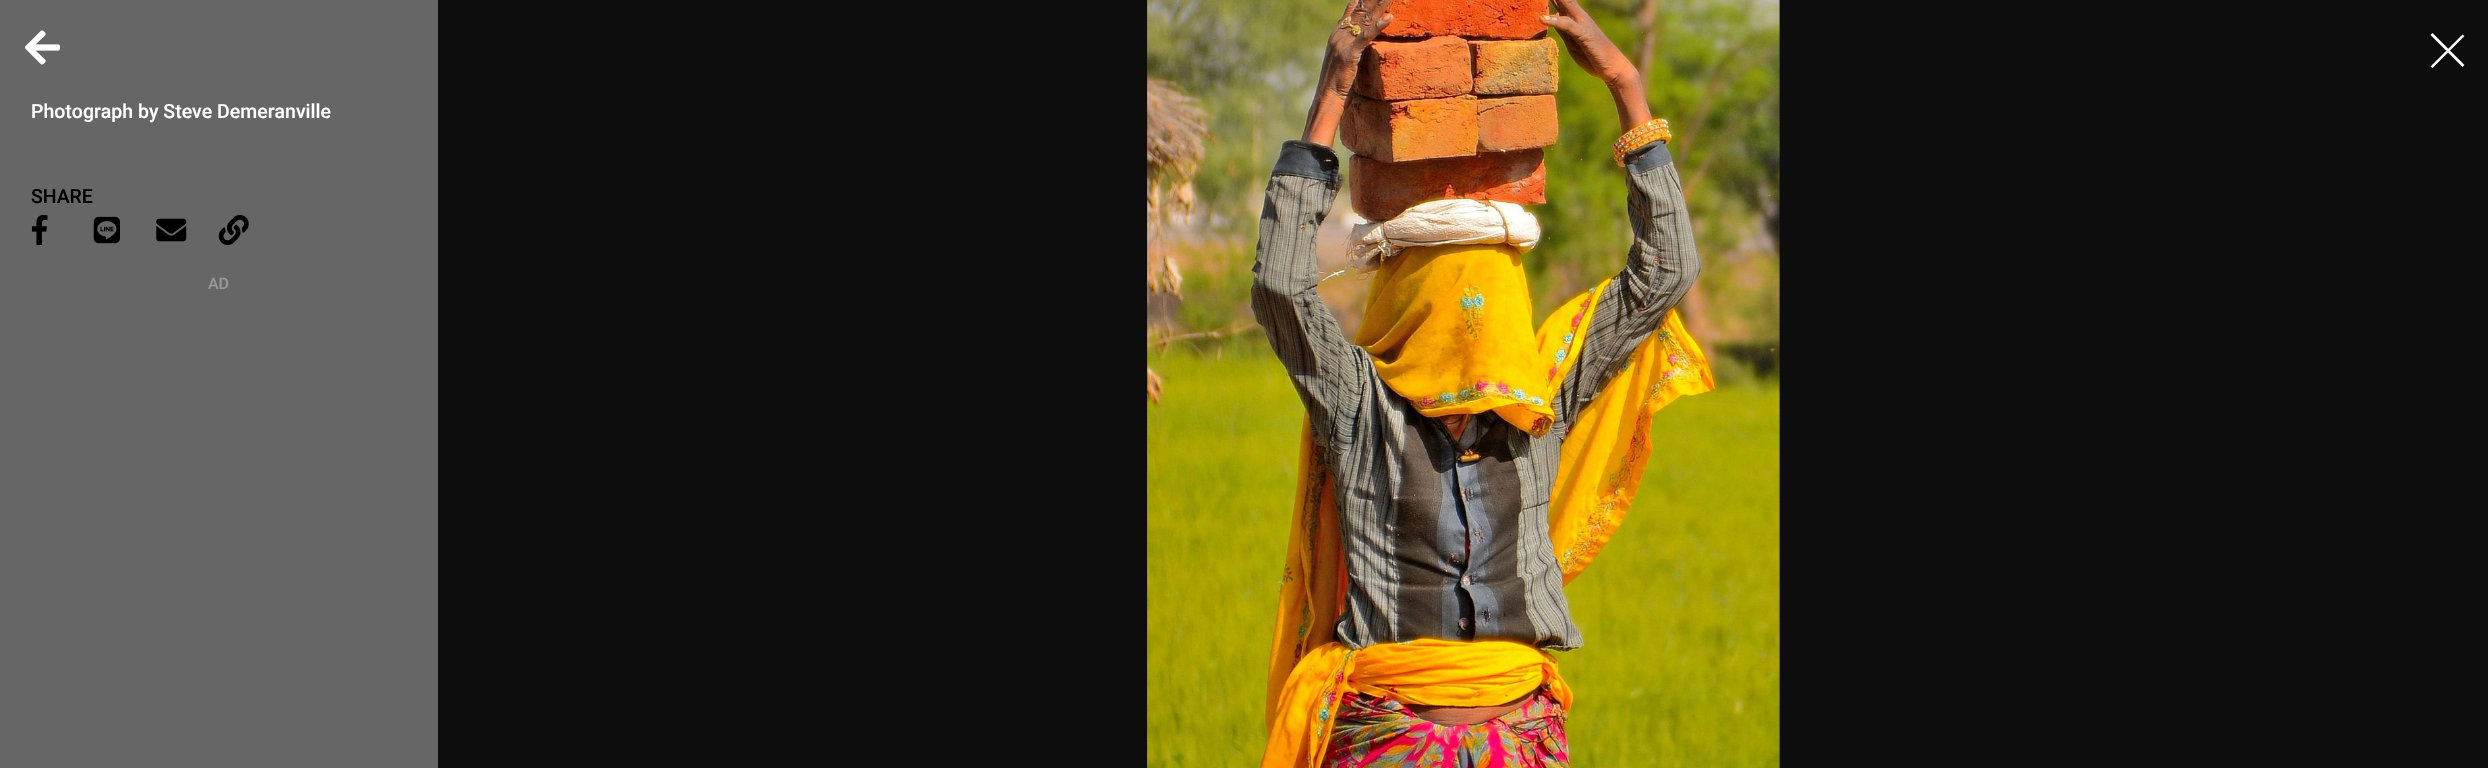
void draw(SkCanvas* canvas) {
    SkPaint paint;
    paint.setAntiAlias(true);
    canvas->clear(0xFF666666);
    canvas->drawImageRect(SkImages::DeferredFromEncodedData(SkData::MakeFromFileName("img1.png")), SkRect::MakeXYWH(25, 30, 35, 35), SkSamplingOptions());
    paint.setColor(0xFF0D0D0D);
    canvas->drawRect(SkRect::MakeXYWH(438, 0, 2050, 768), paint);
    paint.setColor(0xFFFFFFFF);
    canvas->drawPath(SkPathBuilder().moveTo(2432.5f, 33).lineTo(2464.5f, 65).lineTo(2462.5f, 67).lineTo(2430.5f, 35).close().detach(), paint);
    canvas->drawPath(SkPathBuilder().moveTo(2430.5f, 66.5f).lineTo(2462.5f, 34.5f).lineTo(2464.5f, 36).lineTo(2432.5f, 68).close().detach(), paint);
    SkFont font1(fontMgr->matchFamilyStyle("Roboto", SkFontStyle(500, SkFontStyle::kNormal_Width, SkFontStyle::kUpright_Slant)), 19.5f);
    font1.setSubpixel(true);
    canvas->drawString("Photograph by Steve Demeranville", 31, 118, font1, paint);
    paint.setColor(0xFF000000);
    canvas->drawString("SHARE", 31, 203, font1, paint);
    canvas->drawImageRect(SkImages::DeferredFromEncodedData(SkData::MakeFromFileName("img2.png")), SkRect::MakeXYWH(31, 215, 17, 30), SkSamplingOptions());
    canvas->drawImageRect(SkImages::DeferredFromEncodedData(SkData::MakeFromFileName("img3.png")), SkRect::MakeXYWH(93, 216, 27, 28), SkSamplingOptions());
    canvas->drawImageRect(SkImages::DeferredFromEncodedData(SkData::MakeFromFileName("img4.png")), SkRect::MakeXYWH(156, 218, 31, 24), SkSamplingOptions());
    canvas->drawImageRect(SkImages::DeferredFromEncodedData(SkData::MakeFromFileName("img5.png")), SkRect::MakeXYWH(218, 215, 31, 30), SkSamplingOptions());
    SkFont font2(fontMgr->matchFamilyStyle("Roboto", SkFontStyle(500, SkFontStyle::kNormal_Width, SkFontStyle::kUpright_Slant)), 16);
    font2.setSubpixel(true);
    paint.setColor(0xFF999999);
    canvas->drawString("AD", 208, 289, font2, paint);
    canvas->drawImageRect(SkImages::DeferredFromEncodedData(SkData::MakeFromFileName("img6.png")), SkRect::MakeXYWH(1147, 0, 633, 768), SkSamplingOptions());
}
